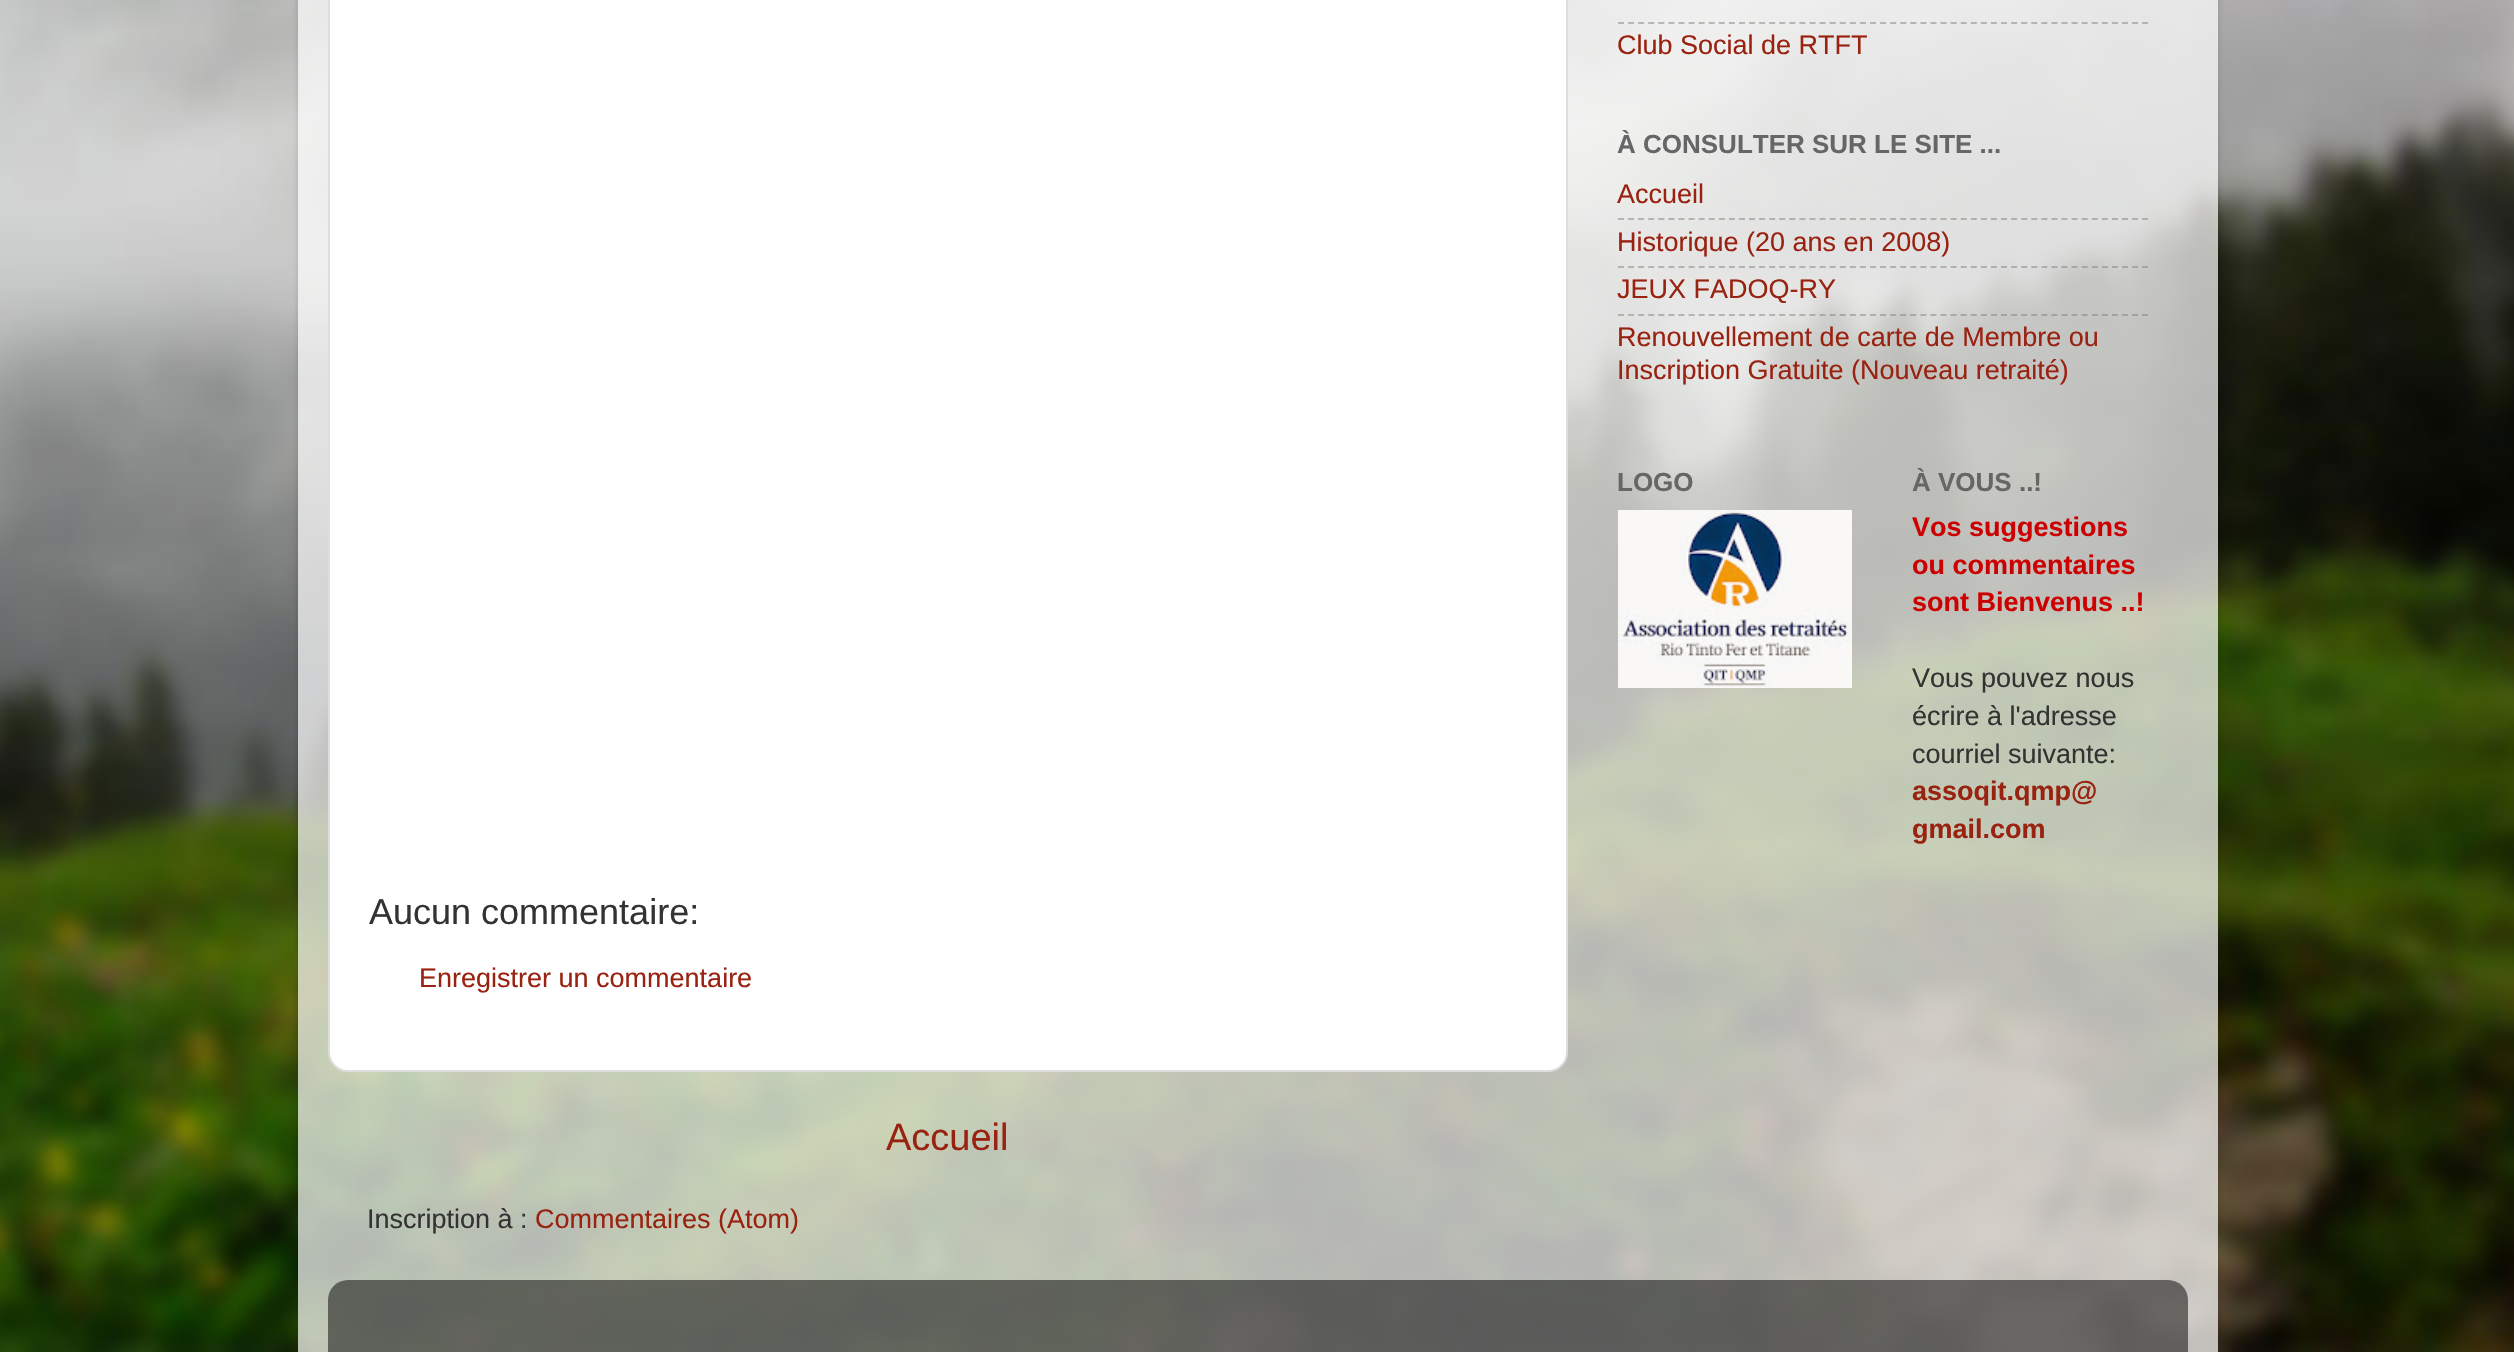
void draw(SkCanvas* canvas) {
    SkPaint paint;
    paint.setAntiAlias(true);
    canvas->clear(0xFFFFFFFF);
    canvas->drawImageRect(SkImages::DeferredFromEncodedData(SkData::MakeFromFileName("img1.png")), SkRect::MakeXYWH(0, 0, 2514, 1352), SkSamplingOptions());
    canvas->save();
    canvas->clipPath(SkPathBuilder(SkPathFillType::kEvenOdd).moveTo(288, 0).lineTo(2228, 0).lineTo(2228, 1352).lineTo(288, 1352).close().moveTo(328, -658).lineTo(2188, -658).cubicTo(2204.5f, -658, 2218, -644.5f, 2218, -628).lineTo(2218, 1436).cubicTo(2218, 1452.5f, 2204.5f, 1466, 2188, 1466).lineTo(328, 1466).cubicTo(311.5f, 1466, 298, 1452.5f, 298, 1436).lineTo(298, -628).cubicTo(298, -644.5f, 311.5f, -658, 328, -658).close().detach(), true);
    paint.setColor(0x26000000);
    paint.setMaskFilter(SkMaskFilter::MakeBlur(kNormal_SkBlurStyle, 3));
    canvas->drawRoundRect(SkRect::MakeXYWH(298, -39, 1920, 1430), 30, 30, paint);
    paint.setMaskFilter(nullptr);
    canvas->restore();
    paint.setColor(0xB3FFFFFF);
    canvas->drawRect(SkRect::MakeXYWH(298, 0, 1920, 1352), paint);
    paint.setStyle(SkPaint::kStroke_Style);
    paint.setStrokeWidth(2);
    paint.setColor(0x80808080);
    paint.setPathEffect(SkDashPathEffect::Make({{6, 4.08f}}, 0));
    canvas->drawPath(SkPathBuilder().moveTo(1618, 23).lineTo(2148, 23).detach(), paint);
    paint.setPathEffect(nullptr);
    SkFont font1(fontMgr->matchFamilyStyle("Liberation Sans", SkFontStyle::Normal()), 27);
    font1.setSubpixel(true);
    paint.setStyle(SkPaint::kFill_Style);
    paint.setColor(0xFF992211);
    canvas->drawString("Club Social de RTFT", 1617, 54, font1, paint);
    SkFont font2(fontMgr->matchFamilyStyle("Liberation Sans", SkFontStyle::Bold()), 26);
    font2.setSubpixel(true);
    paint.setColor(0xFF666666);
    canvas->drawString("À CONSULTER SUR LE SITE ...", 1617, 153, font2, paint);
    paint.setColor(0xFF992211);
    canvas->drawString("Accueil", 1617, 203, font1, paint);
    paint.setStyle(SkPaint::kStroke_Style);
    paint.setColor(0x80808080);
    paint.setPathEffect(SkDashPathEffect::Make({{6, 4.08f}}, 0));
    canvas->drawPath(SkPathBuilder().moveTo(1618, 219).lineTo(2148, 219).detach(), paint);
    paint.setPathEffect(nullptr);
    paint.setStyle(SkPaint::kFill_Style);
    paint.setColor(0xFF992211);
    canvas->drawString("Historique (20 ans en 2008)", 1617, 251, font1, paint);
    paint.setStyle(SkPaint::kStroke_Style);
    paint.setColor(0x80808080);
    paint.setPathEffect(SkDashPathEffect::Make({{6, 4.08f}}, 0));
    canvas->drawPath(SkPathBuilder().moveTo(1618, 267).lineTo(2148, 267).detach(), paint);
    paint.setPathEffect(nullptr);
    paint.setStyle(SkPaint::kFill_Style);
    paint.setColor(0xFF992211);
    canvas->drawString("JEUX FADOQ-RY", 1617, 298, font1, paint);
    paint.setStyle(SkPaint::kStroke_Style);
    paint.setColor(0x80808080);
    paint.setPathEffect(SkDashPathEffect::Make({{6, 4.08f}}, 0));
    canvas->drawPath(SkPathBuilder().moveTo(1618, 315).lineTo(2148, 315).detach(), paint);
    paint.setPathEffect(nullptr);
    paint.setStyle(SkPaint::kFill_Style);
    paint.setColor(0xFF992211);
    canvas->drawString("Renouvellement de carte de Membre ou", 1617, 346, font1, paint);
    canvas->drawString("Inscription Gratuite (Nouveau retraité)", 1617, 379, font1, paint);
    paint.setColor(0xFF666666);
    canvas->drawString("LOGO", 1617, 491, font2, paint);
    canvas->drawImageRect(SkImages::DeferredFromEncodedData(SkData::MakeFromFileName("img2.png")), SkRect::MakeXYWH(1618, 510, 234, 178), SkSamplingOptions());
    canvas->drawString("À VOUS ..!", 1912, 491, font2, paint);
    SkFont font3(fontMgr->matchFamilyStyle("Liberation Sans", SkFontStyle::Bold()), 27);
    font3.setSubpixel(true);
    paint.setColor(0xFFCC0000);
    canvas->drawString("Vos suggestions", 1912, 536, font3, paint);
    canvas->drawString("ou commentaires", 1912, 574, font3, paint);
    canvas->drawString("sont Bienvenus ..!", 1912, 611, font3, paint);
    paint.setColor(0xFF333333);
    canvas->drawString("Vous pouvez nous", 1912, 687, font1, paint);
    canvas->drawString("écrire à l'adresse", 1912, 725, font1, paint);
    canvas->drawString("courriel suivante:", 1912, 763, font1, paint);
    paint.setColor(0xFF992211);
    canvas->drawString("assoqit.qmp@", 1912, 800, font3, paint);
    canvas->drawString("gmail.com", 1912, 838, font3, paint);
    paint.setColor(0xFFFFFFFF);
    canvas->drawRoundRect(SkRect::MakeXYWH(329, -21, 1238, 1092), 19, 19, paint);
    paint.setStyle(SkPaint::kStroke_Style);
    paint.setColor(0xFFDDDDDD);
    canvas->drawRoundRect(SkRect::MakeXYWH(329, -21, 1238, 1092), 19, 19, paint);
    SkFont font4(fontMgr->matchFamilyStyle("Liberation Sans", SkFontStyle::Normal()), 36);
    font4.setSubpixel(true);
    paint.setStyle(SkPaint::kFill_Style);
    paint.setColor(0xFF333333);
    canvas->drawString("Aucun commentaire:", 369, 924, font4, paint);
    paint.setColor(0xFF992211);
    canvas->drawString("Enregistrer un commentaire", 419, 987, font1, paint);
    SkFont font5(fontMgr->matchFamilyStyle("Liberation Sans", SkFontStyle::Normal()), 38);
    font5.setSubpixel(true);
    canvas->drawString("Accueil", 886, 1150, font5, paint);
    paint.setColor(0xFF333333);
    canvas->drawString("Inscription à :", 367, 1228, font1, paint);
    paint.setColor(0xFF992211);
    canvas->drawString("Commentaires (Atom)", 535, 1228, font1, paint);
    canvas->drawImageRect(SkImages::DeferredFromEncodedData(SkData::MakeFromFileName("img3.png")), SkRect::MakeXYWH(328, 1280, 1860, 72), SkSamplingOptions());
}
